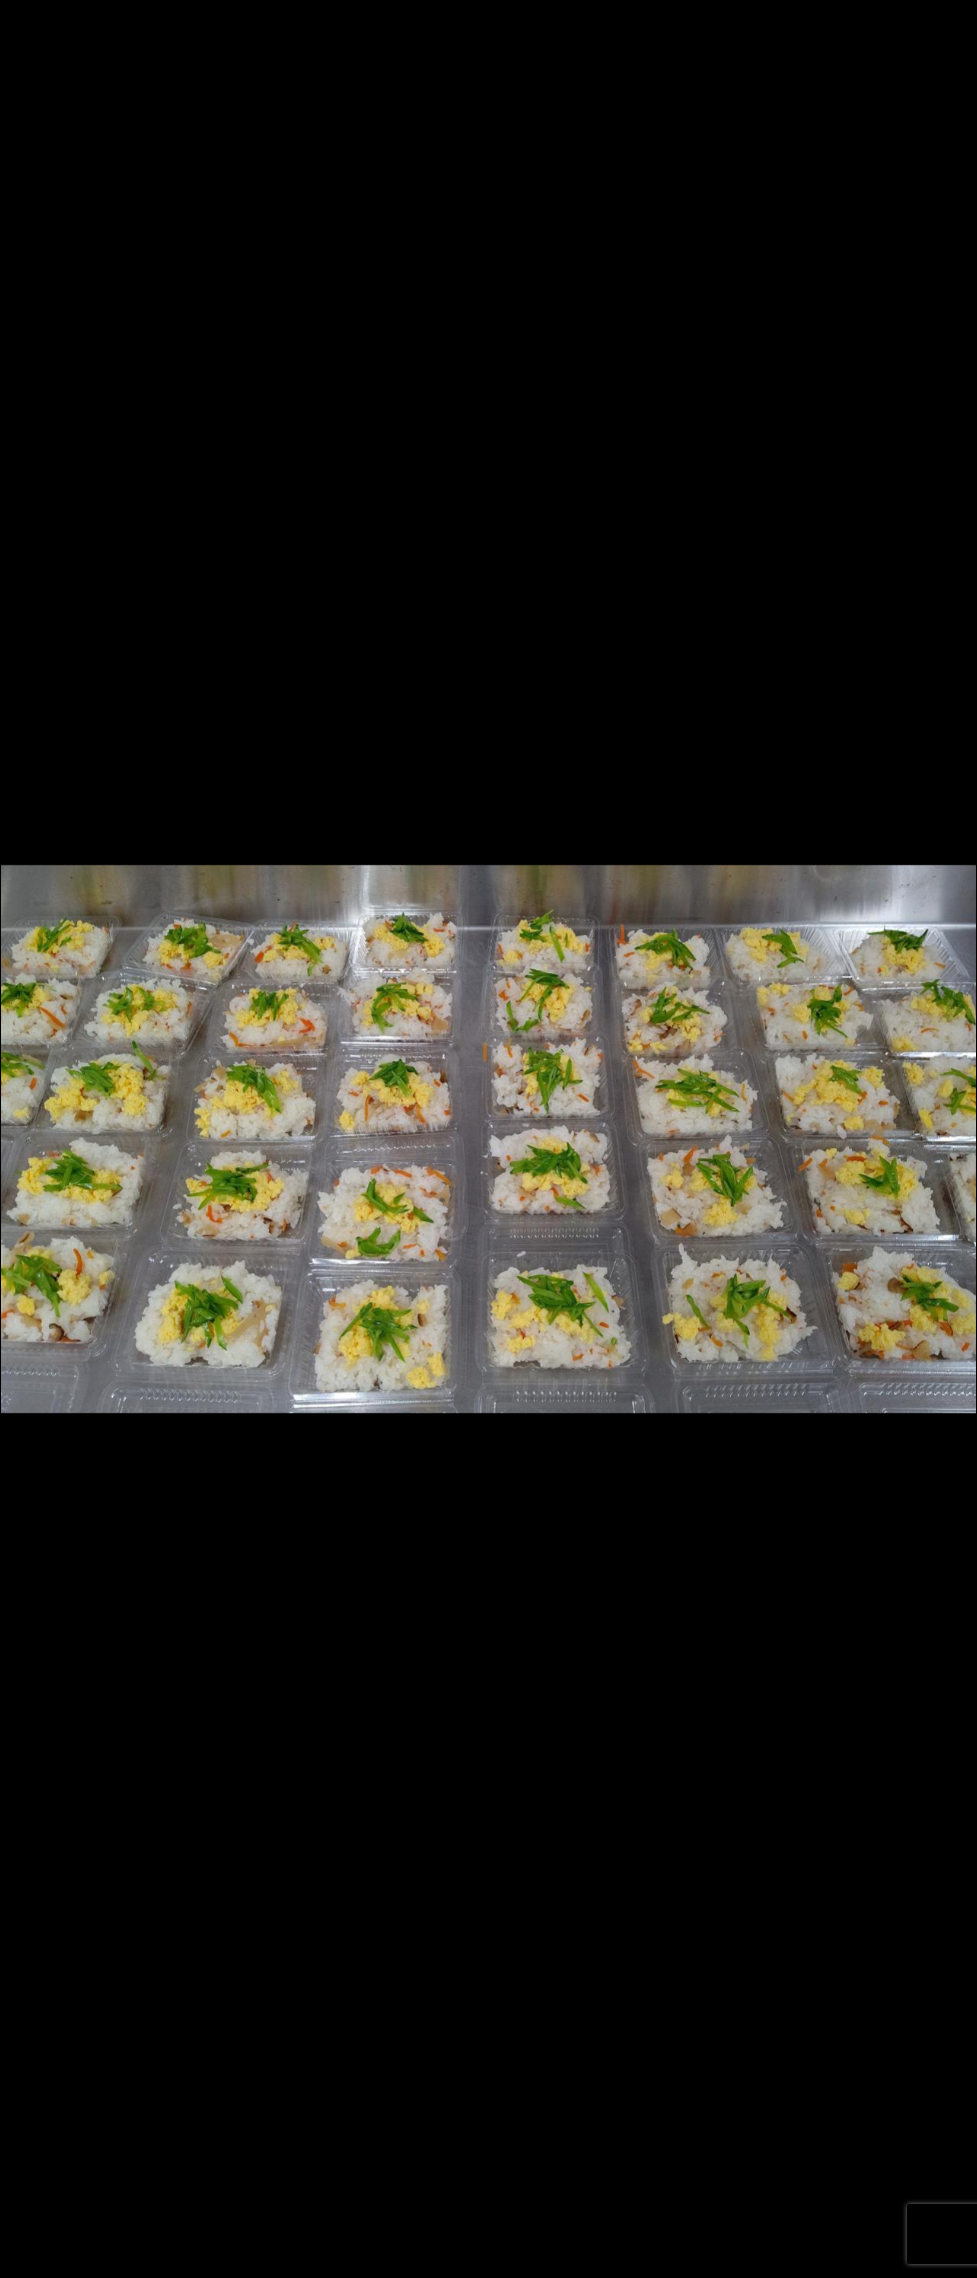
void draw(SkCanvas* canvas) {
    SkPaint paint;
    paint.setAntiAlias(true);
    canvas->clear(0xFF000000);
    canvas->drawImageRect(SkImages::DeferredFromEncodedData(SkData::MakeFromFileName("img1.png")), SkRect::MakeXYWH(1, 864, 975, 550), SkSamplingOptions());
    canvas->save();
    canvas->clipPath(SkPathBuilder(SkPathFillType::kEvenOdd).moveTo(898, 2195).lineTo(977, 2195).lineTo(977, 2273).lineTo(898, 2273).close().moveTo(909, 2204).lineTo(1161, 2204).cubicTo(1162, 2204, 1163, 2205, 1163, 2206).lineTo(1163, 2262).cubicTo(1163, 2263, 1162, 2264, 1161, 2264).lineTo(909, 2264).cubicTo(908, 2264, 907, 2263, 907, 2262).lineTo(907, 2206).cubicTo(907, 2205, 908, 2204, 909, 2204).close().detach(), true);
    paint.setColor(0xFF808080);
    paint.setMaskFilter(SkMaskFilter::MakeBlur(kNormal_SkBlurStyle, 2.5f));
    canvas->drawRoundRect(SkRect::MakeXYWH(907, 2204, 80, 60), 2, 2, paint);
    paint.setMaskFilter(nullptr);
    canvas->restore();
}
